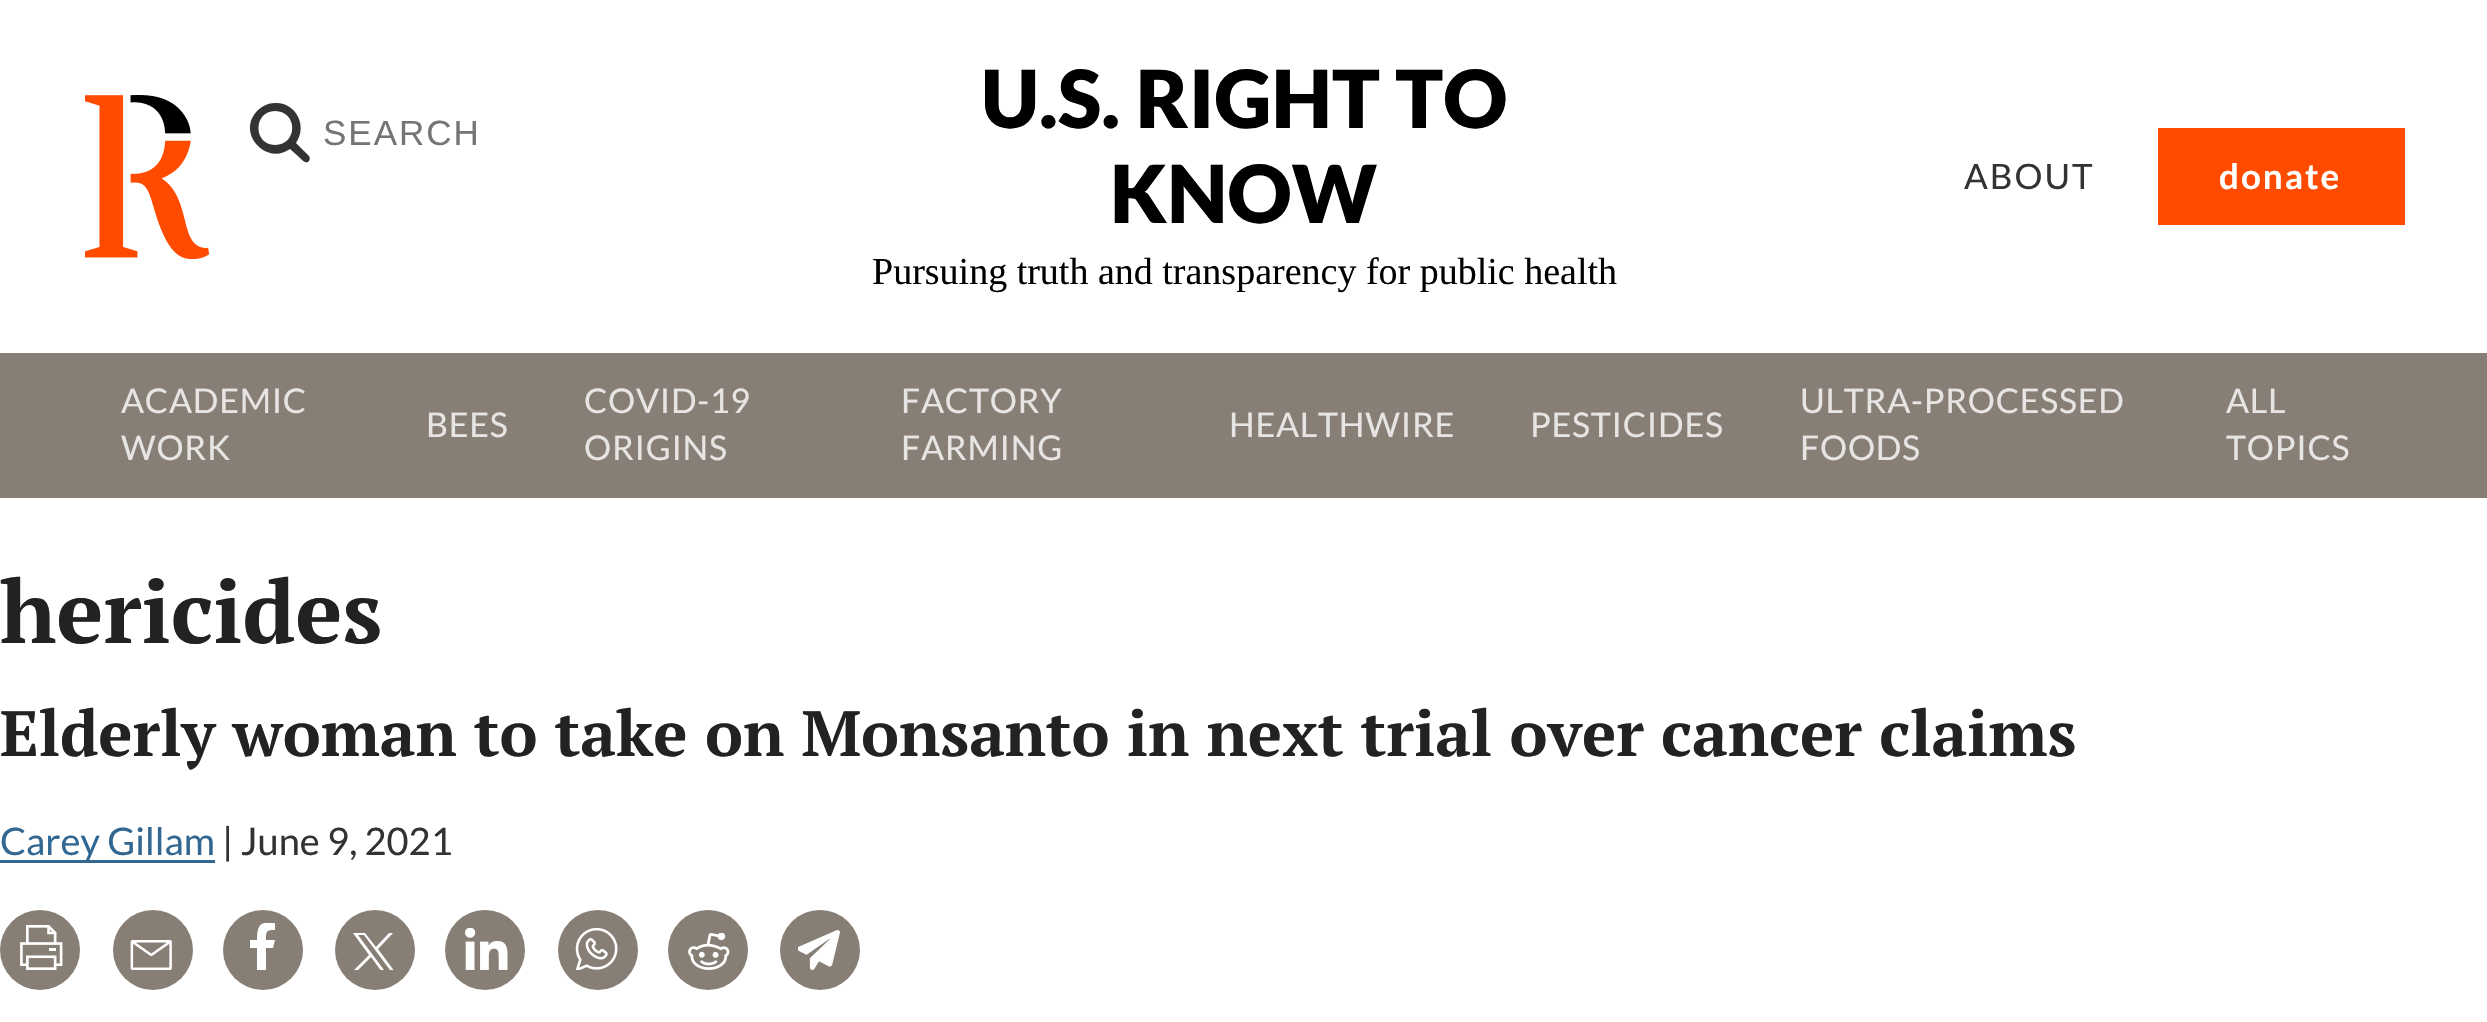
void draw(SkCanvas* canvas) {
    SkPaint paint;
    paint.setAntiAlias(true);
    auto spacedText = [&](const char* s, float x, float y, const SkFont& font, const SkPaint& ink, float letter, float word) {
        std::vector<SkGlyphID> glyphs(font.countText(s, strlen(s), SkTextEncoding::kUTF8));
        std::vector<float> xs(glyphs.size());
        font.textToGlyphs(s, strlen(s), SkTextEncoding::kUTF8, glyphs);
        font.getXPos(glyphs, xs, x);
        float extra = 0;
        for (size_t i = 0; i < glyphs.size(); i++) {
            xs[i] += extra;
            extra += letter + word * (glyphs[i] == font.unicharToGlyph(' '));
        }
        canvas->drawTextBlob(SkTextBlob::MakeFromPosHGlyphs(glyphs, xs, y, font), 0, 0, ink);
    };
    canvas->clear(0xFFFFFFFF);
    canvas->drawImageRect(SkImages::DeferredFromEncodedData(SkData::MakeFromFileName("img1.png")), SkRect::MakeXYWH(85, 95, 125, 165), SkSamplingOptions());
    paint.setColor(0xFF333333);
    canvas->drawPath(SkPathBuilder().moveTo(275, 103).cubicTo(268, 103, 262, 106, 257, 111).cubicTo(236, 133, 266, 166, 290, 149).lineTo(299, 157).cubicTo(301, 159, 306, 165, 309, 161).cubicTo(310, 160, 310, 158, 309, 156).lineTo(296, 143).cubicTo(308, 126, 296, 102, 275, 103).close().moveTo(275, 145).cubicTo(253, 145, 253, 111, 275, 111).cubicTo(298, 111, 298, 145, 275, 145).close().detach(), paint);
    SkFont font1(fontMgr->matchFamilyStyle("Liberation Sans", SkFontStyle::Normal()), 35);
    font1.setSubpixel(true);
    paint.setColor(0xFF757575);
    spacedText("SEARCH", 323, 145, font1, paint, 2, 0);
    SkFont font2(fontMgr->matchFamilyStyle("Lato", SkFontStyle(900, SkFontStyle::kNormal_Width, SkFontStyle::kUpright_Slant)), 80);
    font2.setSubpixel(true);
    paint.setColor(0xFF000000);
    canvas->drawString("U.S. RIGHT TO", 981, 128, font2, paint);
    canvas->drawString("KNOW", 1110, 223, font2, paint);
    SkFont font3(fontMgr->matchFamilyStyle("Liberation Serif", SkFontStyle::Normal()), 38);
    font3.setSubpixel(true);
    canvas->drawString("Pursuing truth and transparency for public health", 872, 284, font3, paint);
    SkFont font4(fontMgr->matchFamilyStyle("Lato", SkFontStyle::Normal()), 35);
    font4.setSubpixel(true);
    paint.setColor(0xFF333333);
    spacedText("ABOUT", 1964, 189, font4, paint, 2, 0);
    paint.setColor(0xFFFF4B00);
    canvas->drawRect(SkRect::MakeXYWH(2158, 128, 247, 97), paint);
    SkFont font5(fontMgr->matchFamilyStyle("Lato", SkFontStyle::Bold()), 35);
    font5.setSubpixel(true);
    paint.setColor(0xFFFFFFFF);
    spacedText("donate", 2219, 189, font5, paint, 2, 0);
    paint.setColor(0xFF877E76);
    canvas->drawRect(SkRect::MakeXYWH(0, 353, 2487, 145), paint);
    SkFont font6(fontMgr->matchFamilyStyle("Lato", SkFontStyle::Normal()), 34);
    font6.setSubpixel(true);
    paint.setColor(0xFFE7E5E4);
    spacedText("ACADEMIC", 121, 413, font6, paint, 0.75f, 0);
    spacedText("WORK", 121, 460, font6, paint, 0.75f, 0);
    spacedText("BEES", 426, 437, font6, paint, 0.75f, 0);
    spacedText("COVID-19", 584, 413, font6, paint, 0.75f, 0);
    spacedText("ORIGINS", 584, 460, font6, paint, 0.75f, 0);
    spacedText("FACTORY", 901, 413, font6, paint, 0.75f, 0);
    spacedText("FARMING", 901, 460, font6, paint, 0.75f, 0);
    spacedText("HEALTHWIRE", 1229, 437, font6, paint, 0.75f, 0);
    spacedText("PESTICIDES", 1530, 437, font6, paint, 0.75f, 0);
    spacedText("ULTRA-PROCESSED", 1800, 413, font6, paint, 0.75f, 0);
    spacedText("FOODS", 1800, 460, font6, paint, 0.75f, 0);
    spacedText("ALL", 2226, 413, font6, paint, 0.75f, 0);
    spacedText("TOPICS", 2226, 460, font6, paint, 0.75f, 0);
    SkFont font7(fontMgr->matchFamilyStyle("PT Serif", SkFontStyle::Bold()), 88);
    font7.setSubpixel(true);
    paint.setColor(0xFF222222);
    canvas->drawString("hericides", 0, 643, font7, paint);
    SkFont font8(fontMgr->matchFamilyStyle("PT Serif", SkFontStyle::Bold()), 64);
    font8.setSubpixel(true);
    canvas->drawString("Elderly woman to take on Monsanto in next trial over cancer claims", 0, 756, font8, paint);
    paint.setColor(0xFF316791);
    canvas->drawRect(SkRect::MakeXYWH(0, 860, 215, 3), paint);
    SkFont font9(fontMgr->matchFamilyStyle("Lato", SkFontStyle::Normal()), 38);
    font9.setSubpixel(true);
    canvas->drawString("Carey Gillam", 0, 855, font9, paint);
    paint.setColor(0xFF333333);
    canvas->drawString("| June 9, 2021", 222, 855, font9, paint);
    paint.setColor(0xFF877E76);
    canvas->drawCircle(40, 950, 40, paint);
    canvas->drawImageRect(SkImages::DeferredFromEncodedData(SkData::MakeFromFileName("img2.png")), SkRect::MakeXYWH(20, 925, 43, 45), SkSamplingOptions());
    canvas->drawCircle(153, 950, 40, paint);
    canvas->drawImageRect(SkImages::DeferredFromEncodedData(SkData::MakeFromFileName("img3.png")), SkRect::MakeXYWH(130, 940, 42, 30), SkSamplingOptions());
    canvas->drawCircle(263, 950, 40, paint);
    canvas->save();
    canvas->clipRect(SkRect::MakeXYWH(250, 923, 25, 47));
    paint.setColor(0xFFFFFFFF);
    canvas->drawPath(SkPathBuilder().moveTo(266, 970).lineTo(266, 948).lineTo(273, 948).lineTo(275, 940).lineTo(266, 940).cubicTo(266, 931, 266, 930, 275, 930).lineTo(275, 923).cubicTo(260, 921, 257, 925, 257, 940).lineTo(250, 940).lineTo(250, 948).lineTo(257, 948).lineTo(257, 970).close().detach(), paint);
    canvas->restore();
    paint.setColor(0xFF877E76);
    canvas->drawCircle(375, 950, 40, paint);
    canvas->save();
    canvas->clipRect(SkRect::MakeXYWH(353, 933, 42, 37));
    paint.setColor(0xFFFFFFFF);
    canvas->drawPath(SkPathBuilder().moveTo(353, 933).lineTo(369, 955).lineTo(352, 972).lineTo(356, 972).lineTo(371, 957).lineTo(382, 972).lineTo(395, 972).lineTo(378, 949).lineTo(393, 933).lineTo(389, 933).lineTo(376, 947).lineTo(365, 933).close().moveTo(358, 935).lineTo(364, 935).lineTo(390, 970).lineTo(384, 970).close().detach(), paint);
    canvas->restore();
    paint.setColor(0xFF877E76);
    canvas->drawCircle(485, 950, 40, paint);
    canvas->drawImageRect(SkImages::DeferredFromEncodedData(SkData::MakeFromFileName("img4.png")), SkRect::MakeXYWH(465, 928, 43, 42), SkSamplingOptions());
    canvas->drawCircle(598, 950, 40, paint);
    canvas->drawImageRect(SkImages::DeferredFromEncodedData(SkData::MakeFromFileName("img5.png")), SkRect::MakeXYWH(575, 928, 43, 42), SkSamplingOptions());
    canvas->drawCircle(708, 950, 40, paint);
    canvas->drawImageRect(SkImages::DeferredFromEncodedData(SkData::MakeFromFileName("img6.png")), SkRect::MakeXYWH(688, 933, 42, 37), SkSamplingOptions());
    canvas->drawCircle(820, 950, 40, paint);
    canvas->drawImageRect(SkImages::DeferredFromEncodedData(SkData::MakeFromFileName("img7.png")), SkRect::MakeXYWH(798, 930, 42, 40), SkSamplingOptions());
}
